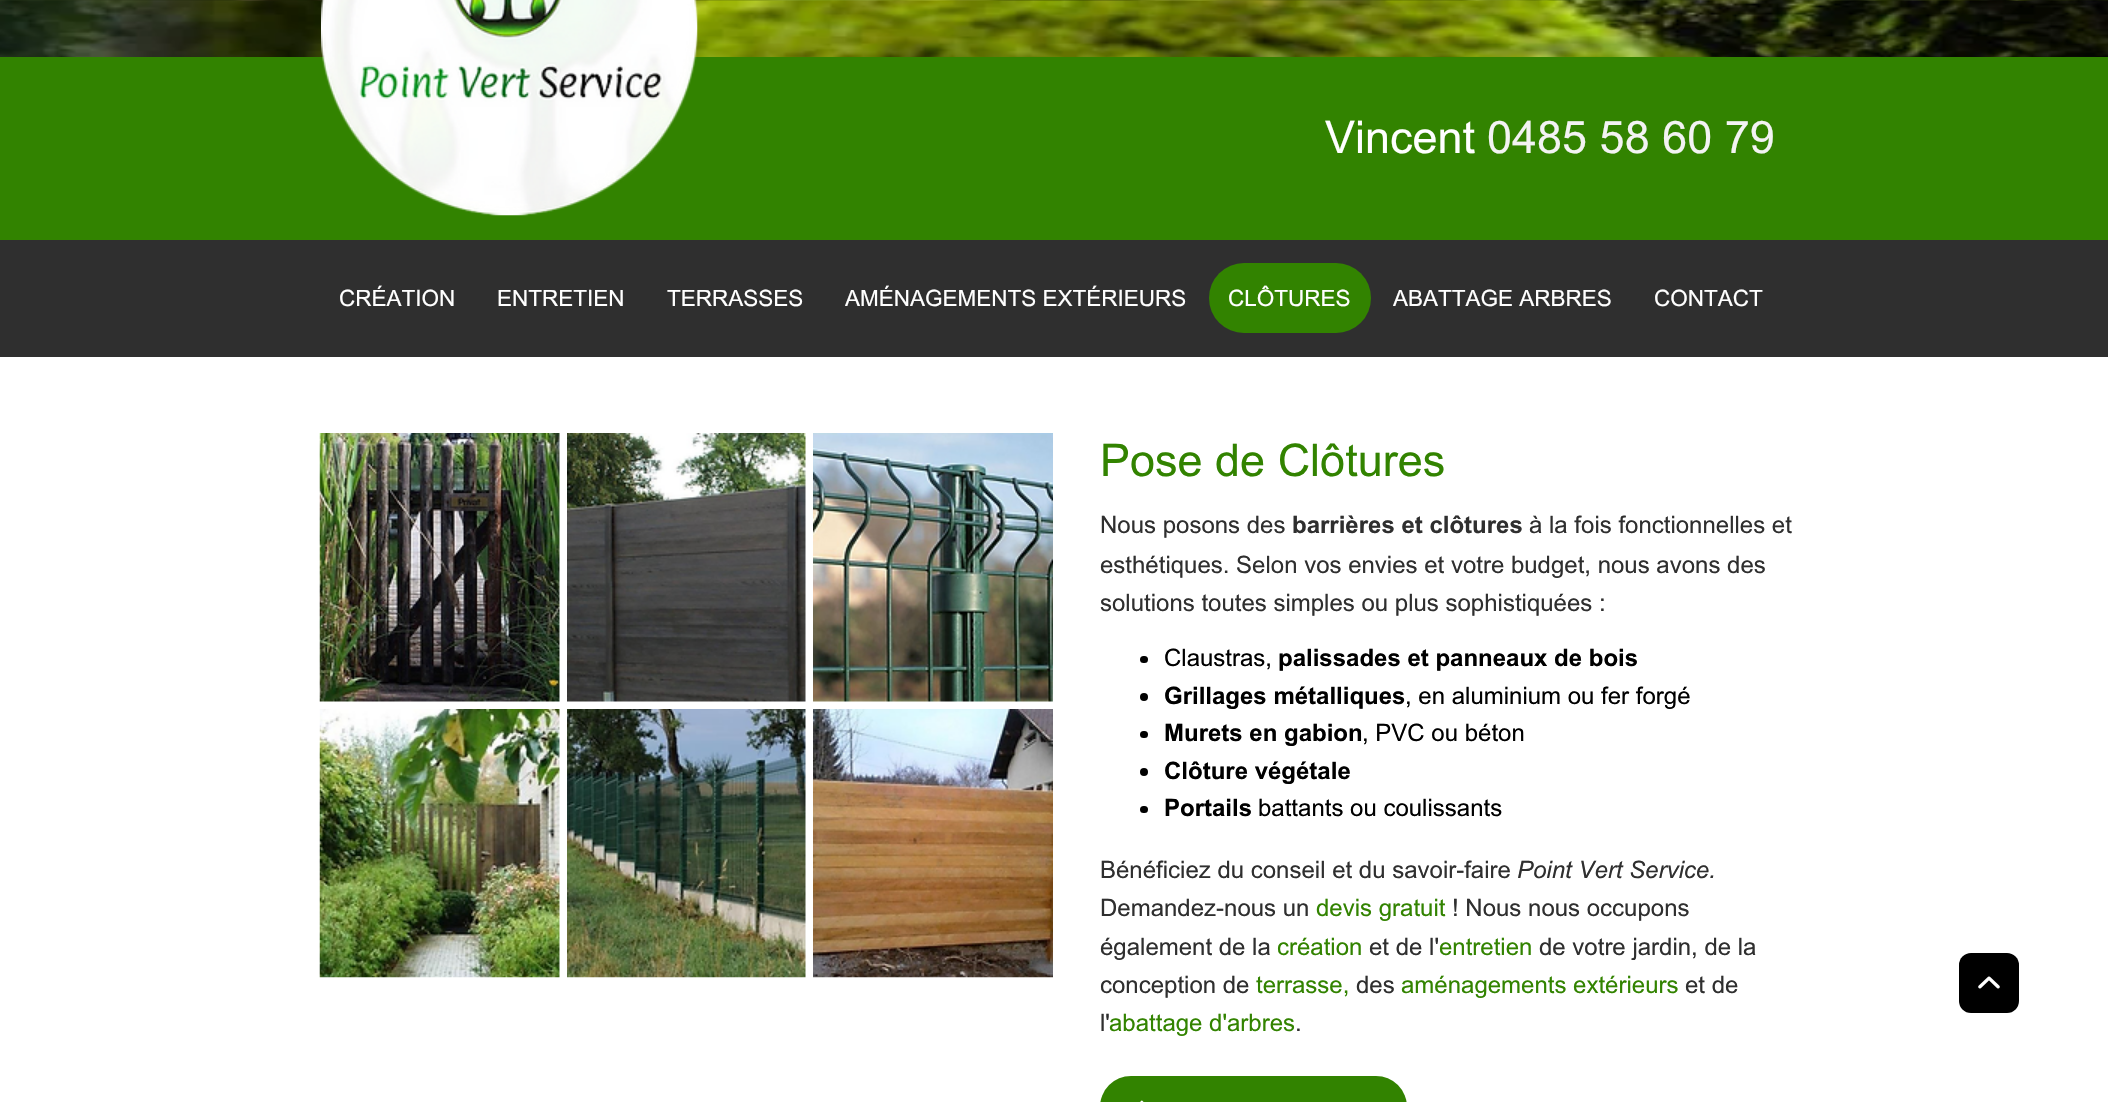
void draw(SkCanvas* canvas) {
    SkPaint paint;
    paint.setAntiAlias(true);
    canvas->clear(0xFFFFFFFF);
    canvas->drawImageRect(SkImages::DeferredFromEncodedData(SkData::MakeFromFileName("img1.png")), SkRect::MakeXYWH(0, 0, 2108, 57), SkSamplingOptions());
    paint.setColor(0xFF328300);
    canvas->drawRect(SkRect::MakeXYWH(0, 57, 2108, 183), paint);
    canvas->drawImageRect(SkImages::DeferredFromEncodedData(SkData::MakeFromFileName("img2.png")), SkRect::MakeXYWH(321, 0, 377, 216), SkSamplingOptions());
    SkFont font1(fontMgr->matchFamilyStyle("Arial", SkFontStyle::Normal()), 45);
    font1.setSubpixel(true);
    paint.setColor(0xFFFFFFFF);
    canvas->drawString("Vincent", 1325, 153, font1, paint);
    paint.setColor(0xFFF3F3F3);
    canvas->drawString("0485 58 60 79", 1487, 153, font1, paint);
    paint.setColor(0xFF2F2F2F);
    canvas->drawRect(SkRect::MakeXYWH(0, 240, 2108, 117), paint);
    SkFont font2(fontMgr->matchFamilyStyle("Arial", SkFontStyle::Normal()), 22.5f);
    font2.setSubpixel(true);
    paint.setColor(0xFFFFFFFF);
    canvas->drawString("CRÉATION", 339, 306, font2, paint);
    canvas->drawString("ENTRETIEN", 497, 306, font2, paint);
    canvas->drawString("TERRASSES", 667, 306, font2, paint);
    canvas->drawString("AMÉNAGEMENTS EXTÉRIEURS", 845, 306, font2, paint);
    paint.setColor(0xFF328300);
    canvas->drawRoundRect(SkRect::MakeXYWH(1209, 263, 162, 70), 35, 35, paint);
    paint.setColor(0xFFFFFFFF);
    canvas->drawString("CLÔTURES", 1228, 306, font2, paint);
    canvas->drawString("ABATTAGE ARBRES", 1393, 306, font2, paint);
    canvas->drawString("CONTACT", 1654, 306, font2, paint);
    canvas->drawImageRect(SkImages::DeferredFromEncodedData(SkData::MakeFromFileName("img3.png")), SkRect::MakeXYWH(319, 433, 241, 269), SkSamplingOptions());
    canvas->drawImageRect(SkImages::DeferredFromEncodedData(SkData::MakeFromFileName("img4.png")), SkRect::MakeXYWH(567, 433, 239, 269), SkSamplingOptions());
    canvas->drawImageRect(SkImages::DeferredFromEncodedData(SkData::MakeFromFileName("img5.png")), SkRect::MakeXYWH(813, 433, 240, 269), SkSamplingOptions());
    canvas->drawImageRect(SkImages::DeferredFromEncodedData(SkData::MakeFromFileName("img6.png")), SkRect::MakeXYWH(319, 709, 241, 269), SkSamplingOptions());
    canvas->drawImageRect(SkImages::DeferredFromEncodedData(SkData::MakeFromFileName("img7.png")), SkRect::MakeXYWH(567, 709, 239, 269), SkSamplingOptions());
    canvas->drawImageRect(SkImages::DeferredFromEncodedData(SkData::MakeFromFileName("img8.png")), SkRect::MakeXYWH(813, 709, 240, 269), SkSamplingOptions());
    paint.setColor(0xFF328300);
    canvas->drawString("Pose de Clôtures", 1100, 476, font1, paint);
    SkFont font3(fontMgr->matchFamilyStyle("Arial", SkFontStyle::Normal()), 24);
    font3.setSubpixel(true);
    paint.setColor(0xFF2F2F2F);
    canvas->drawString("Nous posons des", 1100, 533, font3, paint);
    SkFont font4(fontMgr->matchFamilyStyle("Arial", SkFontStyle::Bold()), 24);
    font4.setSubpixel(true);
    canvas->drawString("barrières et clôtures", 1292, 533, font4, paint);
    canvas->drawString("à la fois fonctionnelles et", 1529, 533, font3, paint);
    canvas->drawString("esthétiques. Selon vos envies et votre budget, nous avons des", 1100, 573, font3, paint);
    canvas->drawString("solutions toutes simples ou plus sophistiquées :", 1100, 611, font3, paint);
    paint.setColor(0xFF000000);
    canvas->drawRoundRect(SkRect::MakeXYWH(1140, 656, 8, 7), 3.5f, 3.5f, paint);
    canvas->drawString("Claustras,", 1164, 666, font3, paint);
    canvas->drawString("palissades et panneaux de bois", 1278, 666, font4, paint);
    canvas->drawCircle(1144, 697, 4, paint);
    canvas->drawString("Grillages métalliques", 1164, 704, font4, paint);
    canvas->drawString(", en aluminium ou fer forgé", 1405, 704, font3, paint);
    canvas->drawRoundRect(SkRect::MakeXYWH(1140, 731, 8, 7), 3.5f, 3.5f, paint);
    canvas->drawString("Murets en gabion", 1164, 741, font4, paint);
    canvas->drawString(", PVC ou béton", 1362, 741, font3, paint);
    canvas->drawCircle(1144, 772, 4, paint);
    canvas->drawString("Clôture végétale", 1164, 779, font4, paint);
    canvas->drawRoundRect(SkRect::MakeXYWH(1140, 806, 8, 7), 3.5f, 3.5f, paint);
    canvas->drawString("Portails", 1164, 816, font4, paint);
    canvas->drawString("battants ou coulissants", 1258, 816, font3, paint);
    paint.setColor(0xFF2F2F2F);
    canvas->drawString("Bénéficiez du conseil et du savoir-faire", 1100, 878, font3, paint);
    SkFont font5(fontMgr->matchFamilyStyle("Arial", SkFontStyle::Italic()), 24);
    font5.setSubpixel(true);
    canvas->drawString("Point Vert Service.", 1517, 878, font5, paint);
    canvas->drawString("Demandez-nous un", 1100, 916, font3, paint);
    paint.setColor(0xFF328300);
    canvas->drawString("devis gratuit", 1316, 916, font3, paint);
    paint.setColor(0xFF2F2F2F);
    canvas->drawString("! Nous nous occupons", 1452, 916, font3, paint);
    canvas->drawString("également de la", 1100, 955, font3, paint);
    paint.setColor(0xFF328300);
    canvas->drawString("création", 1277, 955, font3, paint);
    paint.setColor(0xFF2F2F2F);
    canvas->drawString("et de l'", 1369, 955, font3, paint);
    paint.setColor(0xFF328300);
    canvas->drawString("entretien", 1439, 955, font3, paint);
    paint.setColor(0xFF2F2F2F);
    canvas->drawString("de votre jardin, de la", 1539, 955, font3, paint);
    canvas->drawString("conception de", 1100, 993, font3, paint);
    paint.setColor(0xFF328300);
    canvas->drawString("terrasse,", 1256, 993, font3, paint);
    paint.setColor(0xFF2F2F2F);
    canvas->drawString("des", 1356, 993, font3, paint);
    paint.setColor(0xFF328300);
    canvas->drawString("aménagements extérieurs", 1401, 993, font3, paint);
    paint.setColor(0xFF2F2F2F);
    canvas->drawString("et de", 1685, 993, font3, paint);
    canvas->drawString("l'", 1100, 1031, font3, paint);
    paint.setColor(0xFF328300);
    canvas->drawString("abattage d'arbres", 1109, 1031, font3, paint);
    paint.setColor(0xFF2F2F2F);
    canvas->drawString(".", 1295, 1031, font3, paint);
    paint.setColor(0xFF328300);
    canvas->drawRoundRect(SkRect::MakeXYWH(1100, 1076, 307, 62), 36, 36, paint);
    canvas->drawImageRect(SkImages::DeferredFromEncodedData(SkData::MakeFromFileName("img9.png")), SkRect::MakeXYWH(1140, 1100, 4, 2), SkSamplingOptions());
    paint.setColor(0xFF000000);
    canvas->drawRoundRect(SkRect::MakeXYWH(1959, 953, 60, 60), 12, 12, paint);
    canvas->drawImageRect(SkImages::DeferredFromEncodedData(SkData::MakeFromFileName("img10.png")), SkRect::MakeXYWH(1978, 976, 22, 13), SkSamplingOptions());
}
